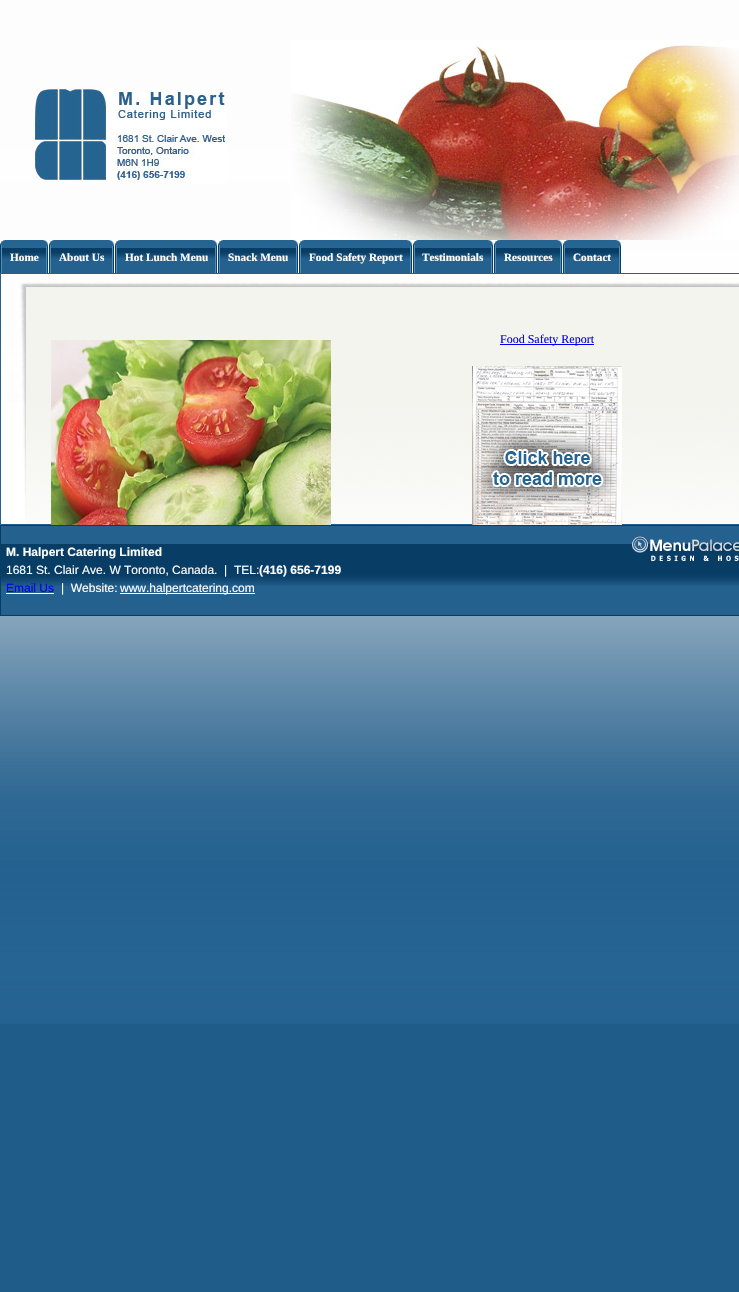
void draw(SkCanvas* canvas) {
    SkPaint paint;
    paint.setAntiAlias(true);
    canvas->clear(0xFF1F5C89);
    canvas->drawImageRect(SkImages::DeferredFromEncodedData(SkData::MakeFromFileName("img1.png")), SkRect::MakeXYWH(0, 0, 739, 1024), SkSamplingOptions());
    canvas->drawImageRect(SkImages::DeferredFromEncodedData(SkData::MakeFromFileName("img2.png")), SkRect::MakeXYWH(291, 40, 448, 200), SkSamplingOptions());
    canvas->drawImageRect(SkImages::DeferredFromEncodedData(SkData::MakeFromFileName("img3.png")), SkRect::MakeXYWH(35, 88, 192, 96), SkSamplingOptions());
    canvas->drawImageRect(SkImages::DeferredFromEncodedData(SkData::MakeFromFileName("img4.png")), SkRect::MakeXYWH(0, 240, 5, 33), SkSamplingOptions());
    canvas->drawImageRect(SkImages::DeferredFromEncodedData(SkData::MakeFromFileName("img5.png")), SkRect::MakeXYWH(5, 240, 44, 33), SkSamplingOptions());
    SkFont font1(fontMgr->matchFamilyStyle("Liberation Serif", SkFontStyle::Bold()), 11.25f);
    font1.setSubpixel(true);
    paint.setColor(0xFFFFFFFF);
    canvas->drawString("Home", 10, 261, font1, paint);
    canvas->drawImageRect(SkImages::DeferredFromEncodedData(SkData::MakeFromFileName("img4.png")), SkRect::MakeXYWH(49, 240, 5, 33), SkSamplingOptions());
    canvas->drawImageRect(SkImages::DeferredFromEncodedData(SkData::MakeFromFileName("img6.png")), SkRect::MakeXYWH(54, 240, 60, 33), SkSamplingOptions());
    canvas->drawString("About Us", 59, 261, font1, paint);
    canvas->drawImageRect(SkImages::DeferredFromEncodedData(SkData::MakeFromFileName("img4.png")), SkRect::MakeXYWH(115, 240, 5, 33), SkSamplingOptions());
    canvas->drawImageRect(SkImages::DeferredFromEncodedData(SkData::MakeFromFileName("img7.png")), SkRect::MakeXYWH(120, 240, 98, 33), SkSamplingOptions());
    canvas->drawString("Hot Lunch Menu", 125, 261, font1, paint);
    canvas->drawImageRect(SkImages::DeferredFromEncodedData(SkData::MakeFromFileName("img4.png")), SkRect::MakeXYWH(218, 240, 5, 33), SkSamplingOptions());
    canvas->drawImageRect(SkImages::DeferredFromEncodedData(SkData::MakeFromFileName("img8.png")), SkRect::MakeXYWH(223, 240, 75, 33), SkSamplingOptions());
    canvas->drawString("Snack Menu", 228, 261, font1, paint);
    canvas->drawImageRect(SkImages::DeferredFromEncodedData(SkData::MakeFromFileName("img4.png")), SkRect::MakeXYWH(299, 240, 5, 33), SkSamplingOptions());
    canvas->drawImageRect(SkImages::DeferredFromEncodedData(SkData::MakeFromFileName("img9.png")), SkRect::MakeXYWH(304, 240, 108, 33), SkSamplingOptions());
    canvas->drawString("Food Safety Report", 309, 261, font1, paint);
    canvas->drawImageRect(SkImages::DeferredFromEncodedData(SkData::MakeFromFileName("img4.png")), SkRect::MakeXYWH(413, 240, 5, 33), SkSamplingOptions());
    canvas->drawImageRect(SkImages::DeferredFromEncodedData(SkData::MakeFromFileName("img10.png")), SkRect::MakeXYWH(418, 240, 76, 33), SkSamplingOptions());
    canvas->drawString("Testimonials", 422, 261, font1, paint);
    canvas->drawImageRect(SkImages::DeferredFromEncodedData(SkData::MakeFromFileName("img4.png")), SkRect::MakeXYWH(494, 240, 5, 33), SkSamplingOptions());
    canvas->drawImageRect(SkImages::DeferredFromEncodedData(SkData::MakeFromFileName("img11.png")), SkRect::MakeXYWH(499, 240, 64, 33), SkSamplingOptions());
    canvas->drawString("Resources", 504, 261, font1, paint);
    canvas->drawImageRect(SkImages::DeferredFromEncodedData(SkData::MakeFromFileName("img4.png")), SkRect::MakeXYWH(563, 240, 5, 33), SkSamplingOptions());
    canvas->drawImageRect(SkImages::DeferredFromEncodedData(SkData::MakeFromFileName("img12.png")), SkRect::MakeXYWH(568, 240, 53, 33), SkSamplingOptions());
    canvas->drawString("Contact", 573, 261, font1, paint);
    canvas->drawRect(SkRect::MakeXYWH(1, 402, 738, 122), paint);
    canvas->drawImageRect(SkImages::DeferredFromEncodedData(SkData::MakeFromFileName("img13.png")), SkRect::MakeXYWH(20, 282, 719, 242), SkSamplingOptions());
    paint.setStyle(SkPaint::kStroke_Style);
    paint.setStrokeWidth(1);
    paint.setColor(0xFF24618E);
    canvas->drawRect(SkRect::MakeXYWH(0.5f, 273.5f, 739, 251), paint);
    canvas->drawImageRect(SkImages::DeferredFromEncodedData(SkData::MakeFromFileName("img14.png")), SkRect::MakeXYWH(51, 340, 280, 185), SkSamplingOptions());
    paint.setStyle(SkPaint::kFill_Style);
    paint.setColor(0xFF0000EE);
    canvas->drawRect(SkRect::MakeXYWH(500, 344, 94, 1), paint);
    SkFont font2(fontMgr->matchFamilyStyle("Liberation Serif", SkFontStyle::Normal()), 12);
    font2.setSubpixel(true);
    canvas->drawString("Food Safety Report", 500, 343, font2, paint);
    canvas->drawImageRect(SkImages::DeferredFromEncodedData(SkData::MakeFromFileName("img15.png")), SkRect::MakeXYWH(472, 366, 150, 159), SkSamplingOptions());
    paint.setColor(0xFF24618E);
    canvas->drawRect(SkRect::MakeXYWH(1, 526, 738, 89), paint);
    canvas->drawImageRect(SkImages::DeferredFromEncodedData(SkData::MakeFromFileName("img16.png")), SkRect::MakeXYWH(1, 544, 738, 42), SkSamplingOptions());
    paint.setStyle(SkPaint::kStroke_Style);
    paint.setColor(0xFF083D65);
    canvas->drawRect(SkRect::MakeXYWH(0.5f, 525.5f, 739, 90), paint);
    SkFont font3(fontMgr->matchFamilyStyle("Liberation Sans", SkFontStyle::Bold()), 12);
    font3.setSubpixel(true);
    paint.setStyle(SkPaint::kFill_Style);
    paint.setColor(0xFFFFFFFF);
    canvas->drawString("M. Halpert Catering Limited", 6, 556, font3, paint);
    SkFont font4(fontMgr->matchFamilyStyle("Liberation Sans", SkFontStyle::Normal()), 12);
    font4.setSubpixel(true);
    canvas->drawString("1681 St. Clair Ave. W Toronto, Canada.  |  TEL:", 6, 574, font4, paint);
    canvas->drawString("(416) 656-7199", 259, 574, font3, paint);
    paint.setColor(0xFF0000EE);
    canvas->drawString("Email Us", 6, 592, font4, paint);
    paint.setColor(0xFFFFFFFF);
    canvas->drawRect(SkRect::MakeXYWH(6, 593, 48, 1), paint);
    canvas->drawString("|  Website:", 61, 592, font4, paint);
    canvas->drawRect(SkRect::MakeXYWH(120, 593, 135, 1), paint);
    canvas->drawString("www.halpertcatering.com", 120, 592, font4, paint);
    canvas->drawImageRect(SkImages::DeferredFromEncodedData(SkData::MakeFromFileName("img17.png")), SkRect::MakeXYWH(632, 536, 107, 25), SkSamplingOptions());
}
